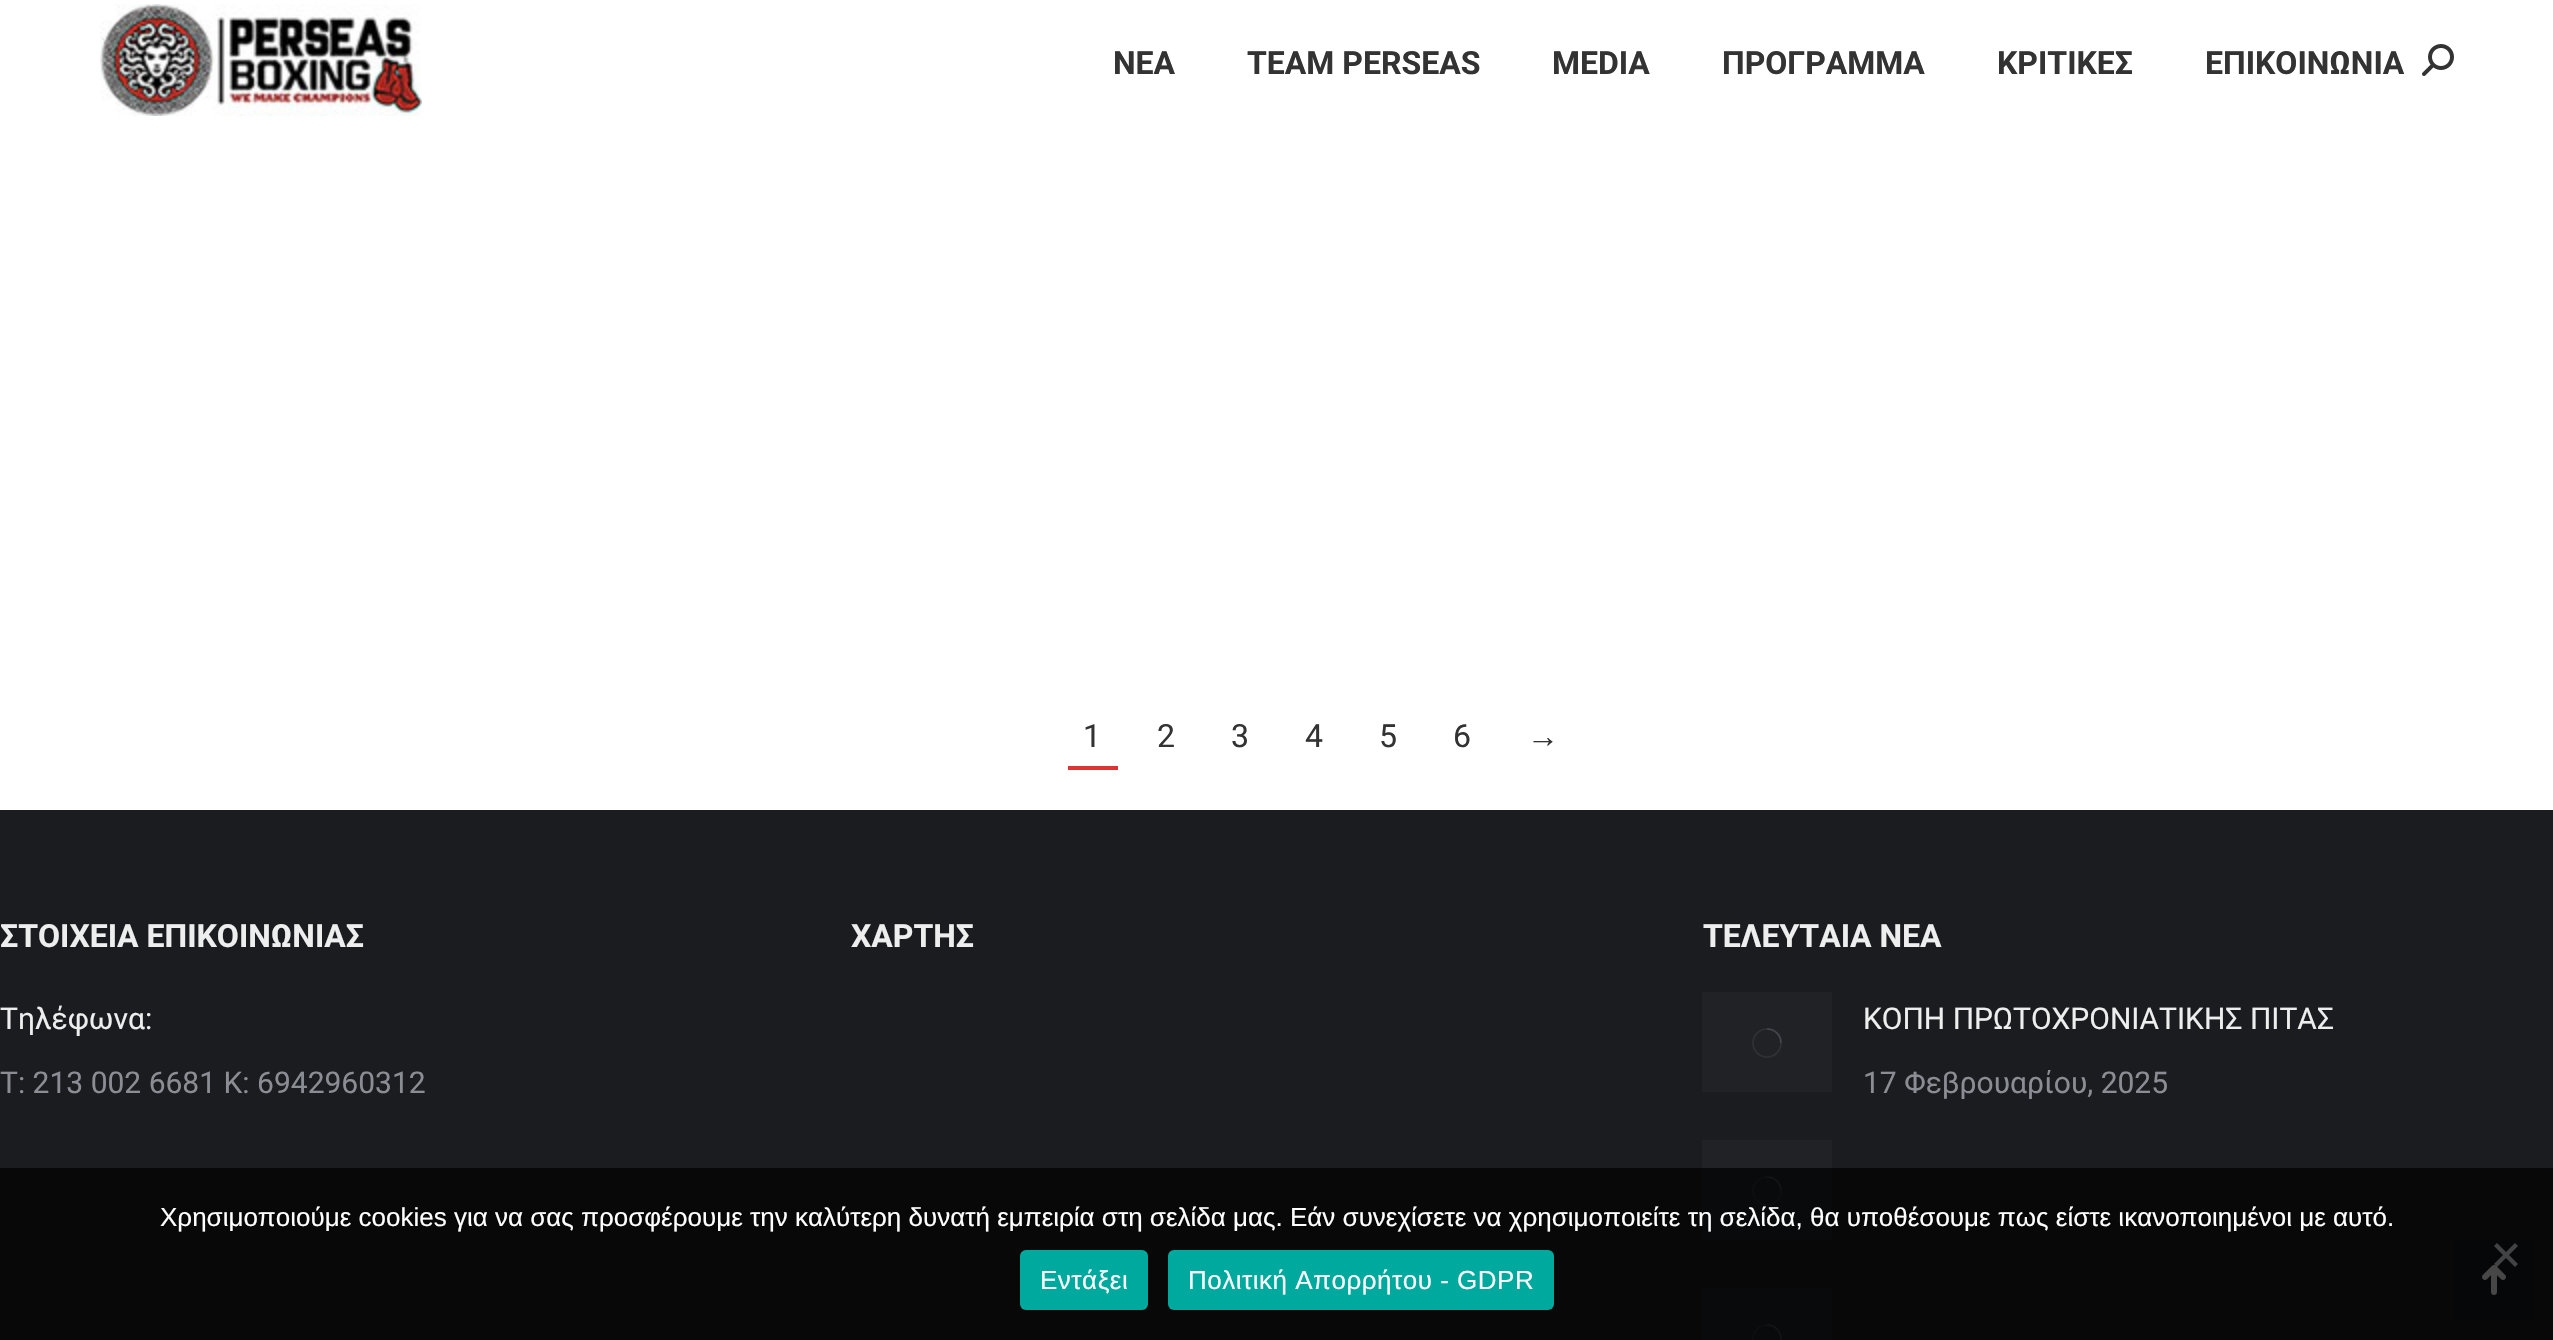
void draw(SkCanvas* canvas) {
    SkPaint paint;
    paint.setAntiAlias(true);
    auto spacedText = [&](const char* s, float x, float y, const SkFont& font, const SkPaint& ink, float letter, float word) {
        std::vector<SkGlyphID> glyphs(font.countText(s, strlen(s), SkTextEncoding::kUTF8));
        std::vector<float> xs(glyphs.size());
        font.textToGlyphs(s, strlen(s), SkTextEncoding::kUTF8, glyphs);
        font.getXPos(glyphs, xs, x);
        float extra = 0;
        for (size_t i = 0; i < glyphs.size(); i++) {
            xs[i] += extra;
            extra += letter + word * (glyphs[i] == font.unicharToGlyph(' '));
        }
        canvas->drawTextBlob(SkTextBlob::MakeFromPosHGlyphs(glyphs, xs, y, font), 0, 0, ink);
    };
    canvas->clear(0xFFFFFFFF);
    canvas->drawImageRect(SkImages::DeferredFromEncodedData(SkData::MakeFromFileName("img1.png")), SkRect::MakeXYWH(100, 4, 322, 112), SkSamplingOptions());
    SkFont font1(fontMgr->matchFamilyStyle("Roboto", SkFontStyle::Bold()), 32);
    font1.setSubpixel(true);
    paint.setColor(0xFF333333);
    canvas->drawString("ΝΕΑ", 1113, 74, font1, paint);
    canvas->drawString("TEAM PERSEAS", 1247, 74, font1, paint);
    canvas->drawString("MEDIA", 1552, 74, font1, paint);
    canvas->drawString("ΠΡΟΓΡΑΜΜΑ", 1722, 74, font1, paint);
    canvas->drawString("ΚΡΙΤΙΚΕΣ", 1997, 74, font1, paint);
    canvas->drawString("ΕΠΙΚΟΙΝΩΝΙΑ", 2205, 74, font1, paint);
    canvas->drawImageRect(SkImages::DeferredFromEncodedData(SkData::MakeFromFileName("img2.png")), SkRect::MakeXYWH(2422, 44, 32, 32), SkSamplingOptions());
    SkFont font2(fontMgr->matchFamilyStyle("Roboto", SkFontStyle::Normal()), 32);
    font2.setSubpixel(true);
    canvas->drawString("1", 1083, 747, font2, paint);
    paint.setColor(0xFFDD3333);
    canvas->drawRect(SkRect::MakeXYWH(1068, 766, 50, 4), paint);
    paint.setColor(0xFF333333);
    canvas->drawString("2", 1157, 747, font2, paint);
    canvas->drawString("3", 1231, 747, font2, paint);
    canvas->drawString("4", 1305, 747, font2, paint);
    canvas->drawString("5", 1379, 747, font2, paint);
    canvas->drawString("6", 1453, 747, font2, paint);
    SkFont font3(fontMgr->matchFamilyStyle("Liberation Sans", SkFontStyle::Normal()), 32);
    font3.setSubpixel(true);
    canvas->drawString("→", 1527, 747, font3, paint);
    paint.setColor(0xFF1A1C20);
    canvas->drawRect(SkRect::MakeXYWH(0, 810, 2553, 530), paint);
    paint.setColor(0xFFEEEEEE);
    canvas->drawString("ΣΤΟΙΧΕΙΑ ΕΠΙΚΟΙΝΩΝΙΑΣ", 0, 947, font1, paint);
    SkFont font4(fontMgr->matchFamilyStyle("Roboto", SkFontStyle::Normal()), 30);
    font4.setSubpixel(true);
    canvas->drawString("Τηλέφωνα:", 0, 1029, font4, paint);
    paint.setColor(0xFF8B8D94);
    canvas->drawString("Τ: 213 002 6681 Κ: 6942960312", 0, 1093, font4, paint);
    paint.setColor(0xFFEEEEEE);
    canvas->drawString("ΧΑΡΤΗΣ", 851, 947, font1, paint);
    canvas->drawString("ΤΕΛΕΥΤΑΙΑ ΝΕΑ", 1703, 947, font1, paint);
    paint.setColor(0xFF202226);
    canvas->drawRect(SkRect::MakeXYWH(1702, 992, 130, 100), paint);
    paint.setStyle(SkPaint::kStroke_Style);
    paint.setStrokeWidth(1.6f);
    paint.setColor(0xFF2F3135);
    canvas->drawCircle(1767, 1043, 14, paint);
    paint.setColor(0x408B8D94);
    canvas->drawPath(SkPathBuilder().moveTo(1781, 1043).cubicTo(1781, 1035, 1775, 1029, 1767, 1029).detach(), paint);
    paint.setStyle(SkPaint::kFill_Style);
    paint.setColor(0xFFEEEEEE);
    canvas->drawString("ΚΟΠΗ ΠΡΩΤΟΧΡΟΝΙΑΤΙΚΗΣ ΠΙΤΑΣ", 1863, 1029, font4, paint);
    paint.setColor(0xFF8B8D94);
    canvas->drawString("17 Φεβρουαρίου, 2025", 1863, 1093, font4, paint);
    paint.setColor(0xFF202226);
    canvas->drawRect(SkRect::MakeXYWH(1702, 1140, 130, 100), paint);
    paint.setStyle(SkPaint::kStroke_Style);
    paint.setColor(0xFF2F3135);
    canvas->drawCircle(1767, 1191, 14, paint);
    paint.setColor(0x408B8D94);
    canvas->drawPath(SkPathBuilder().moveTo(1781, 1191).cubicTo(1781, 1183, 1775, 1177, 1767, 1177).detach(), paint);
    paint.setStyle(SkPaint::kFill_Style);
    paint.setColor(0xFF202226);
    canvas->drawRect(SkRect::MakeXYWH(1702, 1288, 130, 52), paint);
    paint.setStyle(SkPaint::kStroke_Style);
    paint.setColor(0xFF2F3135);
    canvas->drawCircle(1767, 1339, 14, paint);
    paint.setColor(0x408B8D94);
    canvas->drawPath(SkPathBuilder().moveTo(1781, 1339).cubicTo(1781, 1331, 1775, 1325, 1767, 1325).detach(), paint);
    paint.setStyle(SkPaint::kFill_Style);
    paint.setColor(0xFF15161A);
    canvas->drawRect(SkRect::MakeXYWH(2454, 1240, 80, 80), paint);
    canvas->drawImageRect(SkImages::DeferredFromEncodedData(SkData::MakeFromFileName("img3.png")), SkRect::MakeXYWH(2482, 1265, 24, 30), SkSamplingOptions());
    paint.setColor(0xB8000000);
    canvas->drawRect(SkRect::MakeXYWH(0, 1168, 2553, 172), paint);
    SkFont font5(fontMgr->matchFamilyStyle("Liberation Sans", SkFontStyle::Normal()), 26);
    font5.setSubpixel(true);
    paint.setColor(0xFFFFFFFF);
    canvas->drawString("Χρησιμοποιούμε cookies για να σας προσφέρουμε την καλύτερη δυνατή εμπειρία στη σελίδα μας. Εάν συνεχίσετε να χρησιμοποιείτε τη σελίδα, θα υποθέσουμε πως είστε ικανοποιημένοι με αυτό.", 160, 1226, font5, paint);
    paint.setColor(0x80808080);
    canvas->drawPath(SkPathBuilder().moveTo(2515, 1243).lineTo(2518, 1246).lineTo(2497, 1267).lineTo(2494, 1264).close().detach(), paint);
    paint.setColor(0xFF434344);
    canvas->drawPath(SkPathBuilder().moveTo(2494, 1246).lineTo(2497, 1243).lineTo(2518, 1264).lineTo(2515, 1267).close().detach(), paint);
    paint.setColor(0xFF00A99D);
    canvas->drawRoundRect(SkRect::MakeXYWH(1020, 1250, 128, 60), 6, 6, paint);
    paint.setColor(0xFFFFFFFF);
    spacedText("Εντάξει", 1040, 1289, font5, paint, 0.5f, 0);
    paint.setColor(0xFF00A99D);
    canvas->drawRoundRect(SkRect::MakeXYWH(1168, 1250, 386, 60), 6, 6, paint);
    paint.setColor(0xFFFFFFFF);
    spacedText("Πολιτική Απορρήτου - GDPR", 1188, 1289, font5, paint, 0.5f, 0);
}
